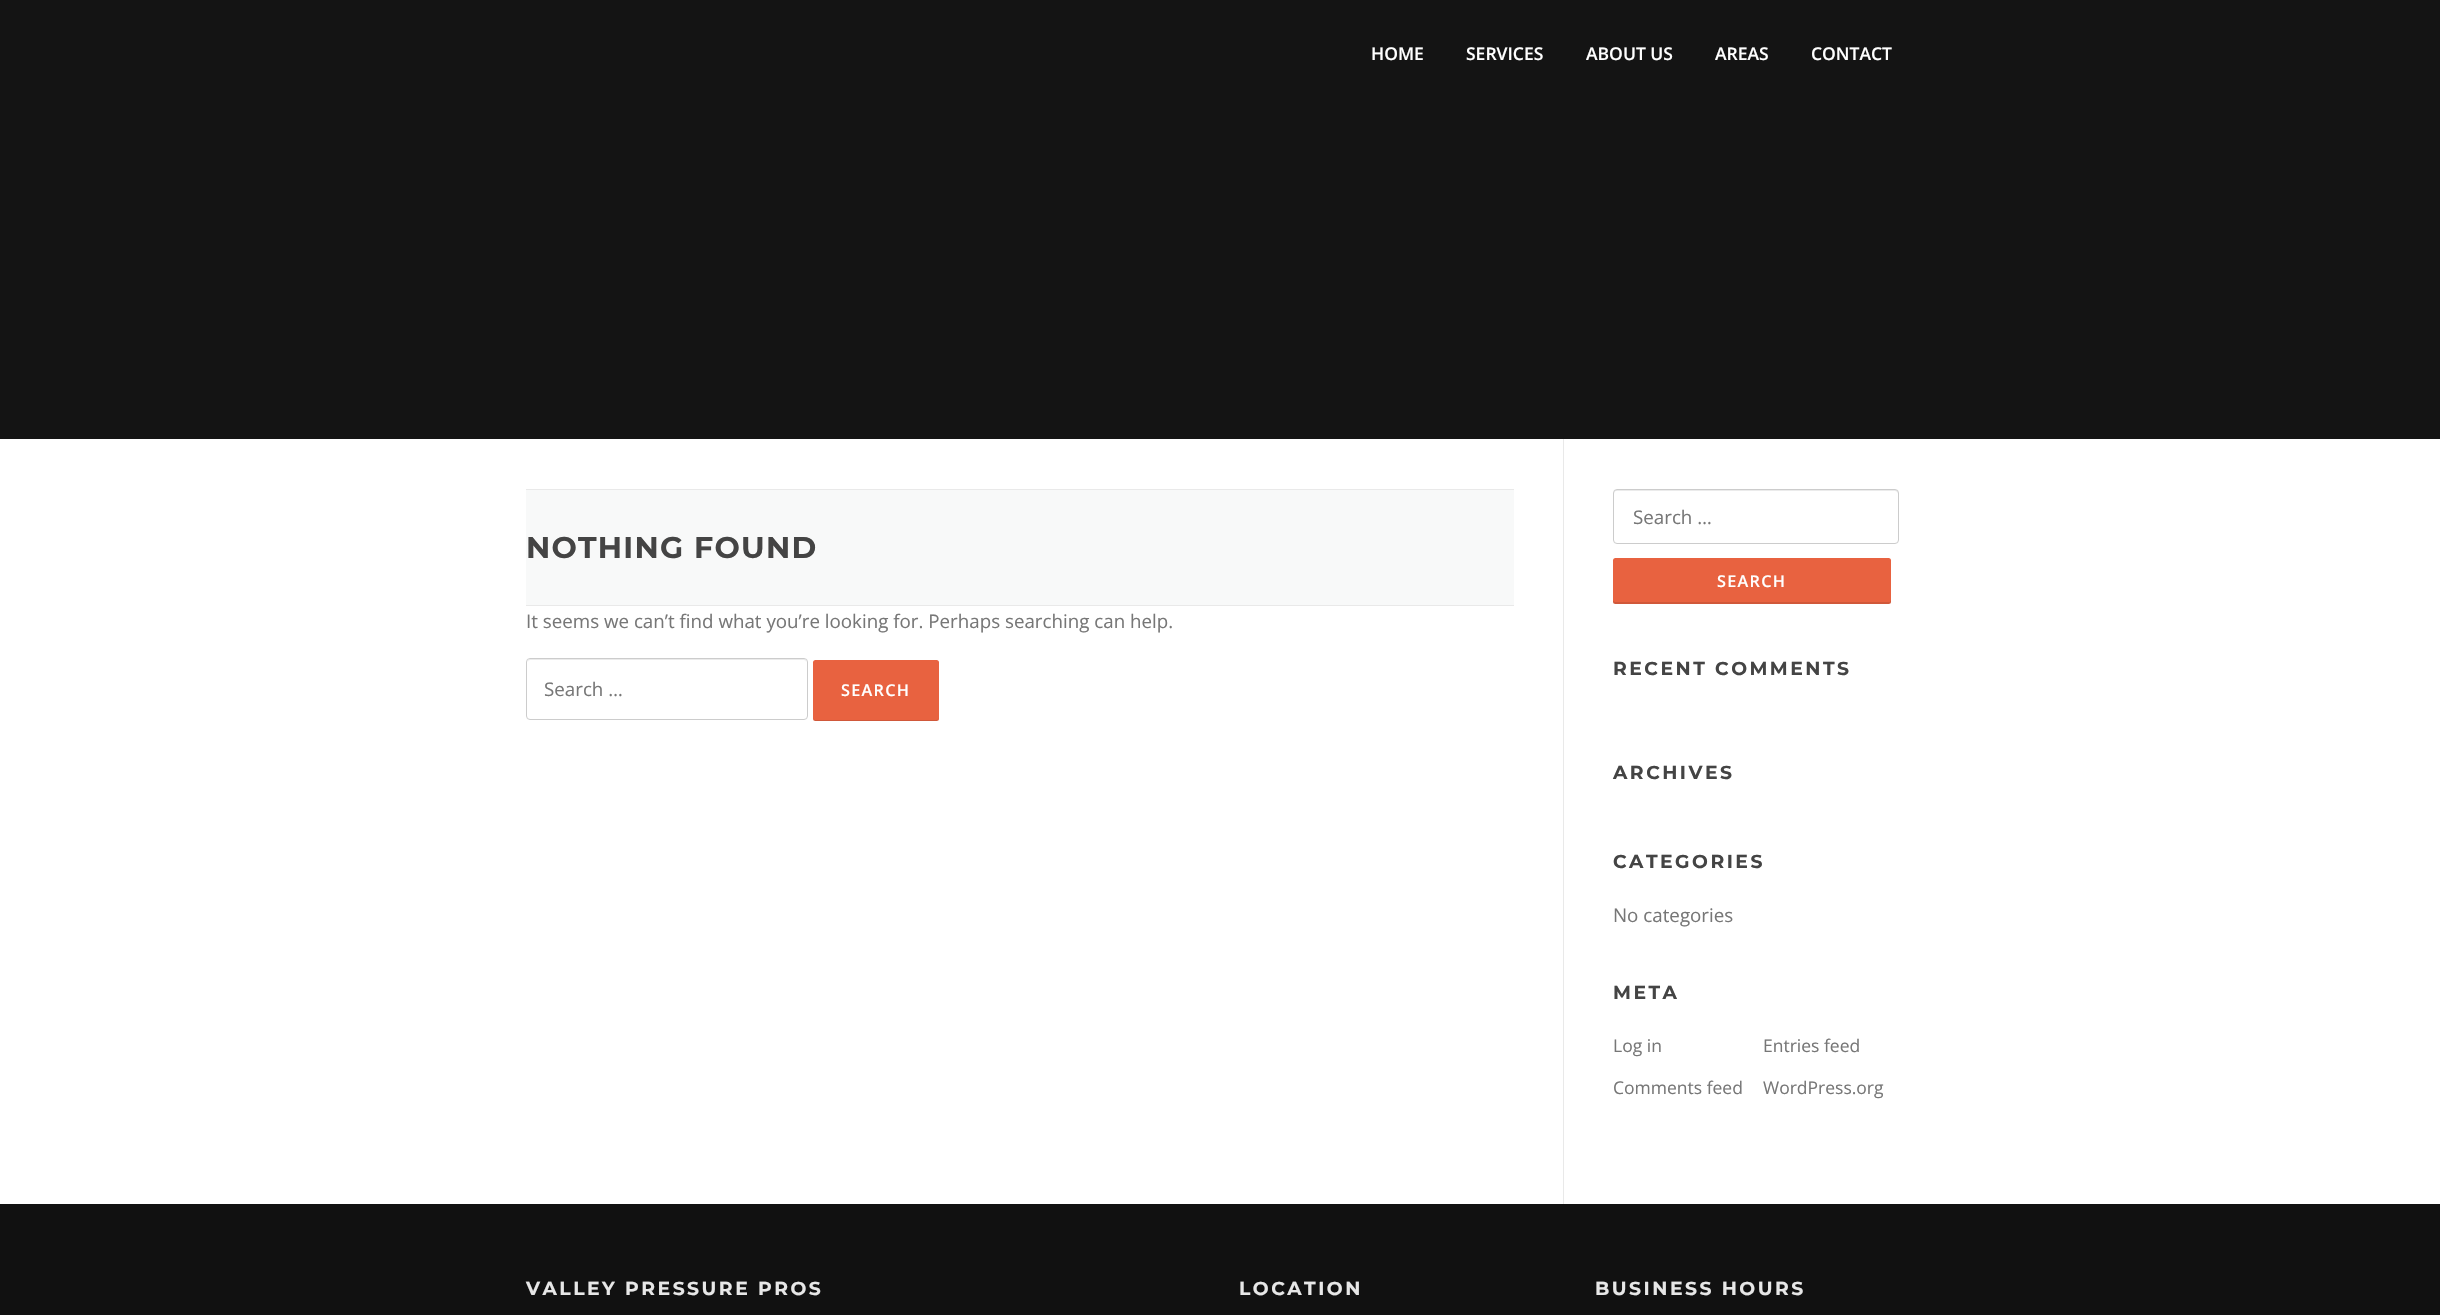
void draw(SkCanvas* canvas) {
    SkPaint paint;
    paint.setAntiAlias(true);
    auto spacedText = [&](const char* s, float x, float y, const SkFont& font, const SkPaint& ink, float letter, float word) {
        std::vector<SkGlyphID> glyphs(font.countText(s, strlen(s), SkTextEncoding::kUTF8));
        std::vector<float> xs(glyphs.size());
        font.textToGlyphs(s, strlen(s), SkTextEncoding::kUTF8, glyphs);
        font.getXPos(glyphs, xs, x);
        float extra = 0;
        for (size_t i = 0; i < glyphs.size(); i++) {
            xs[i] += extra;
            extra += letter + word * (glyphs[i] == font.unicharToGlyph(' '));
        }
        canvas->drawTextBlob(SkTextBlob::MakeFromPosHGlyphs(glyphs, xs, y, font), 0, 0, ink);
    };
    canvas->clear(0xFFFFFFFF);
    paint.setColor(0xFF141414);
    canvas->drawRect(SkRect::MakeXYWH(0, 0, 2440, 439), paint);
    SkFont font1(fontMgr->matchFamilyStyle("Open Sans", SkFontStyle(600, SkFontStyle::kNormal_Width, SkFontStyle::kUpright_Slant)), 17.5f);
    font1.setSubpixel(true);
    paint.setColor(0xFFFFFFFF);
    canvas->drawString("HOME", 1371, 60, font1, paint);
    canvas->drawString("SERVICES", 1466, 60, font1, paint);
    canvas->drawString("ABOUT US", 1586, 60, font1, paint);
    canvas->drawString("AREAS", 1715, 60, font1, paint);
    canvas->drawString("CONTACT", 1811, 60, font1, paint);
    paint.setColor(0xFFF8F9F9);
    canvas->drawRect(SkRect::MakeXYWH(526, 490, 988, 115), paint);
    paint.setColor(0xFFE9E9E9);
    canvas->drawRect(SkRect::MakeXYWH(526, 489, 988, 1), paint);
    canvas->drawRect(SkRect::MakeXYWH(526, 605, 988, 1), paint);
    SkFont font2(fontMgr->matchFamilyStyle("Montserrat", SkFontStyle::Bold()), 30);
    font2.setSubpixel(true);
    paint.setColor(0xFF444444);
    spacedText("NOTHING FOUND", 526, 558, font2, paint, 1.25f, 0);
    SkFont font3(fontMgr->matchFamilyStyle("Open Sans", SkFontStyle::Normal()), 18.75f);
    font3.setSubpixel(true);
    paint.setColor(0xFF777777);
    canvas->drawString("It seems we can’t find what you’re looking for. Perhaps searching can help.", 526, 628, font3, paint);
    paint.setColor(0xFFEBEBEB);
    canvas->drawPath(SkPathBuilder().moveTo(530, 660).lineTo(804, 660).cubicTo(805, 660, 806, 661, 806, 662).cubicTo(806, 660, 805, 659, 804, 659).lineTo(530, 659).cubicTo(529, 659, 528, 660, 528, 662).cubicTo(528, 661, 529, 660, 530, 660).close().detach(), paint);
    paint.setStyle(SkPaint::kStroke_Style);
    paint.setStrokeWidth(1);
    paint.setColor(0xFFCCCCCC);
    canvas->drawRoundRect(SkRect::MakeXYWH(526.5f, 658.5f, 281, 61), 3.5f, 3.5f, paint);
    paint.setStyle(SkPaint::kFill_Style);
    paint.setColor(0xFF777777);
    canvas->drawString("Search …", 544, 696, font3, paint);
    paint.setColor(0xFFE86240);
    canvas->drawRoundRect(SkRect::MakeXYWH(813, 660, 126, 61), 2.5f, 2.5f, paint);
    paint.setColor(0x1A000000);
    canvas->drawPath(SkPathBuilder().moveTo(813, 719).cubicTo(814, 720, 814, 721, 816, 721).lineTo(936, 721).cubicTo(938, 721, 939, 720, 939, 718).cubicTo(939, 719, 938, 720, 936, 720).lineTo(815, 720).close().detach(), paint);
    SkFont font4(fontMgr->matchFamilyStyle("Open Sans", SkFontStyle(600, SkFontStyle::kNormal_Width, SkFontStyle::kUpright_Slant)), 16.25f);
    font4.setSubpixel(true);
    paint.setColor(0xFFFFFFFF);
    spacedText("SEARCH", 841, 696, font4, paint, 1.25f, 0);
    paint.setColor(0xFFE9E9E9);
    canvas->drawRect(SkRect::MakeXYWH(1563, 439, 1, 765), paint);
    paint.setColor(0xFFEBEBEB);
    canvas->drawPath(SkPathBuilder().moveTo(1616, 491).lineTo(1895, 491).cubicTo(1896, 491, 1898, 492, 1898, 494).cubicTo(1898, 492, 1898, 490, 1896, 490).lineTo(1616, 490).cubicTo(1614, 490, 1614, 492, 1614, 494).cubicTo(1614, 492, 1615, 491, 1616, 491).close().detach(), paint);
    paint.setStyle(SkPaint::kStroke_Style);
    paint.setColor(0xFFCCCCCC);
    canvas->drawRoundRect(SkRect::MakeXYWH(1613.5f, 489.5f, 285, 54), 3.5f, 3.5f, paint);
    paint.setStyle(SkPaint::kFill_Style);
    paint.setColor(0xFF777777);
    canvas->drawString("Search …", 1633, 524, font3, paint);
    paint.setColor(0xFFE86240);
    canvas->drawRoundRect(SkRect::MakeXYWH(1613, 558, 278, 46), 2.5f, 2.5f, paint);
    paint.setColor(0x1A000000);
    canvas->drawPath(SkPathBuilder().moveTo(1613, 601).lineTo(1613, 602).cubicTo(1613, 603, 1614, 604, 1616, 604).lineTo(1888, 604).cubicTo(1890, 604, 1891, 603, 1891, 602).lineTo(1891, 600).lineTo(1890, 602).lineTo(1615, 602).close().detach(), paint);
    paint.setColor(0xFFFFFFFF);
    spacedText("SEARCH", 1717, 587, font4, paint, 1.25f, 0);
    SkFont font5(fontMgr->matchFamilyStyle("Montserrat", SkFontStyle::Bold()), 18.75f);
    font5.setSubpixel(true);
    paint.setColor(0xFF444444);
    spacedText("RECENT COMMENTS", 1613, 675, font5, paint, 2.5f, 0);
    spacedText("ARCHIVES", 1613, 779, font5, paint, 2.5f, 0);
    spacedText("CATEGORIES", 1613, 868, font5, paint, 2.5f, 0);
    paint.setColor(0xFF777777);
    canvas->drawString("No categories", 1613, 922, font3, paint);
    paint.setColor(0xFF444444);
    spacedText("META", 1613, 999, font5, paint, 2.5f, 0);
    SkFont font6(fontMgr->matchFamilyStyle("Open Sans", SkFontStyle::Normal()), 17.5f);
    font6.setSubpixel(true);
    paint.setColor(0xFF777777);
    canvas->drawString("Log in", 1613, 1052, font6, paint);
    canvas->drawString("Entries feed", 1763, 1052, font6, paint);
    canvas->drawString("Comments feed", 1613, 1094, font6, paint);
    canvas->drawString("WordPress.org", 1763, 1094, font6, paint);
    paint.setColor(0xFF111111);
    canvas->drawRect(SkRect::MakeXYWH(0, 1204, 2440, 111), paint);
    paint.setColor(0xFFE7E7E7);
    spacedText("VALLEY PRESSURE PROS", 526, 1295, font5, paint, 2.5f, 0);
    spacedText("LOCATION", 1239, 1295, font5, paint, 2.5f, 0);
    spacedText("BUSINESS HOURS", 1595, 1295, font5, paint, 2.5f, 0);
}
